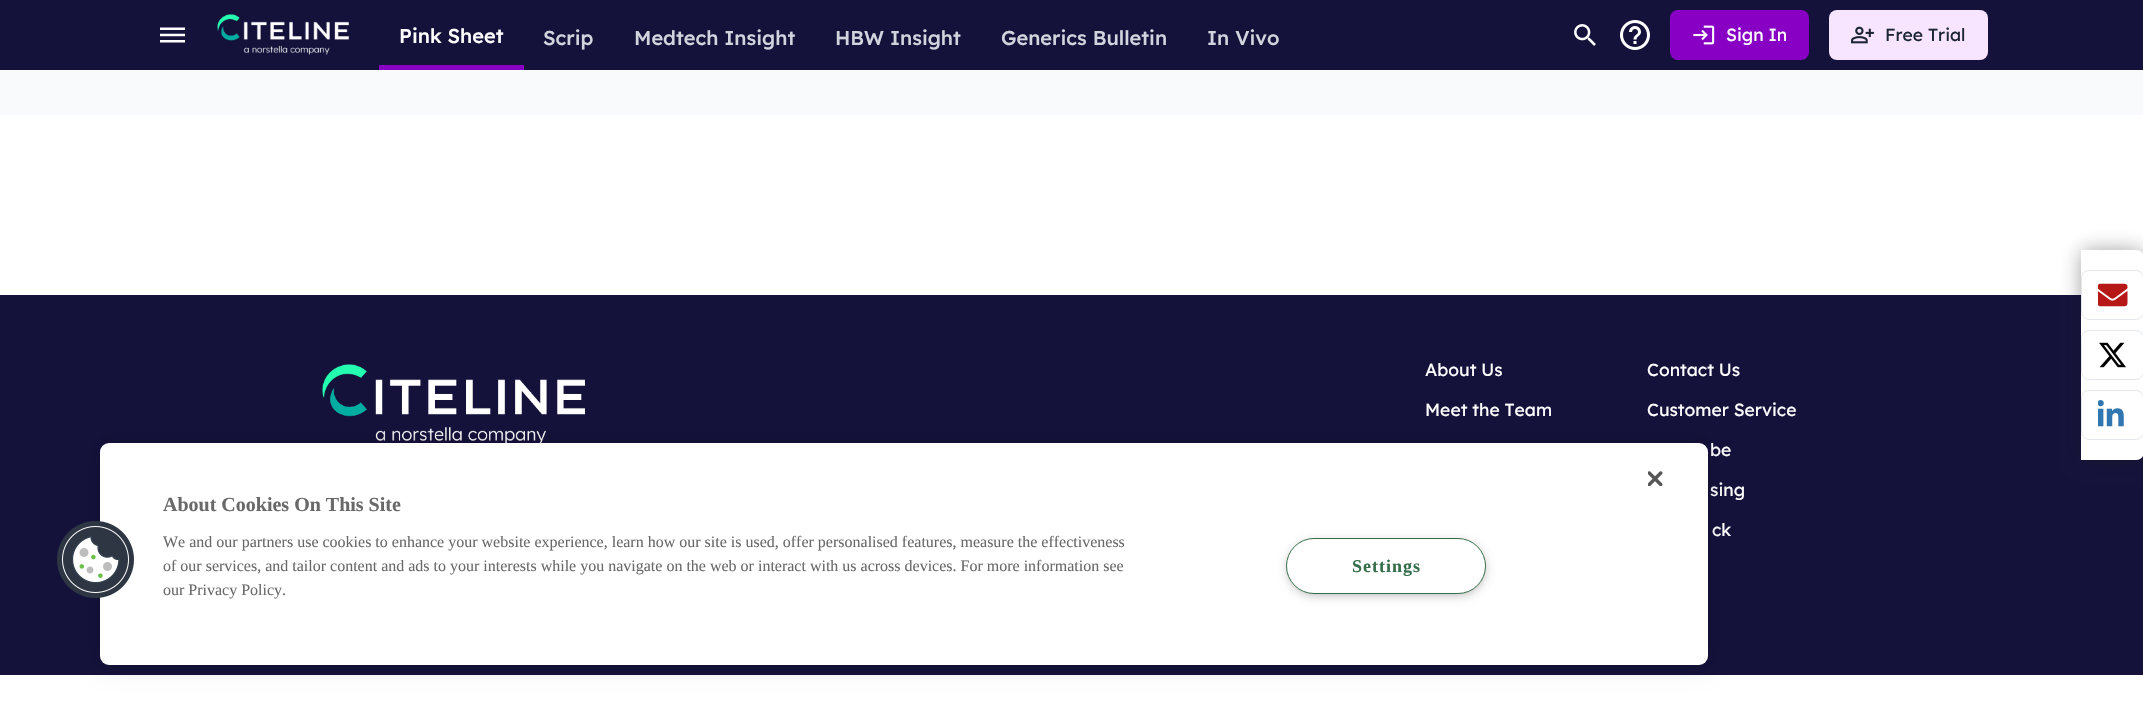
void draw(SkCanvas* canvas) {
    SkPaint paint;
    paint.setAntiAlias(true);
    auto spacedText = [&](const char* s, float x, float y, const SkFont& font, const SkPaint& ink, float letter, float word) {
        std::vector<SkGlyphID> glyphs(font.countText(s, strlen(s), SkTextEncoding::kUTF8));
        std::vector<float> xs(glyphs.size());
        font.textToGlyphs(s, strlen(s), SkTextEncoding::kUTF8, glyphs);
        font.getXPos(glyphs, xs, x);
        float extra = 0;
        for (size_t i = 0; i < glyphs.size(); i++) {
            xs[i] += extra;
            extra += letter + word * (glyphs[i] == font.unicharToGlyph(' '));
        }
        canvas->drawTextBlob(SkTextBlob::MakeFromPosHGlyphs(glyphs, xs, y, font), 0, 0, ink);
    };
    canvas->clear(0xFFFFFFFF);
    paint.setColor(0xFF14123B);
    canvas->drawRect(SkRect::MakeXYWH(0, 0, 2143, 70), paint);
    canvas->drawImageRect(SkImages::DeferredFromEncodedData(SkData::MakeFromFileName("img1.png")), SkRect::MakeXYWH(160, 27, 25, 16), SkSamplingOptions());
    canvas->drawImageRect(SkImages::DeferredFromEncodedData(SkData::MakeFromFileName("img2.png")), SkRect::MakeXYWH(217, 14, 132, 41), SkSamplingOptions());
    paint.setColor(0xFF8700C3);
    canvas->drawRect(SkRect::MakeXYWH(379, 65, 145, 5), paint);
    SkFont font1(fontMgr->matchFamilyStyle("Lexend", SkFontStyle(500, SkFontStyle::kNormal_Width, SkFontStyle::kUpright_Slant)), 20);
    font1.setSubpixel(true);
    paint.setColor(0xFFFFFFFF);
    canvas->drawString("Pink Sheet", 399, 43, font1, paint);
    paint.setColor(0xFFD0D5DD);
    canvas->drawString("Scrip", 543, 45, font1, paint);
    canvas->drawString("Medtech Insight", 634, 45, font1, paint);
    canvas->drawString("HBW Insight", 835, 45, font1, paint);
    canvas->drawString("Generics Bulletin", 1001, 45, font1, paint);
    canvas->drawString("In Vivo", 1207, 45, font1, paint);
    canvas->drawImageRect(SkImages::DeferredFromEncodedData(SkData::MakeFromFileName("img3.png")), SkRect::MakeXYWH(1574, 24, 22, 22), SkSamplingOptions());
    canvas->drawImageRect(SkImages::DeferredFromEncodedData(SkData::MakeFromFileName("img4.png")), SkRect::MakeXYWH(1620, 20, 30, 30), SkSamplingOptions());
    paint.setColor(0xFF8700C3);
    canvas->drawRoundRect(SkRect::MakeXYWH(1670, 10, 139, 50), 8, 8, paint);
    canvas->drawImageRect(SkImages::DeferredFromEncodedData(SkData::MakeFromFileName("img5.png")), SkRect::MakeXYWH(1693, 25, 22, 20), SkSamplingOptions());
    SkFont font2(fontMgr->matchFamilyStyle("Lexend", SkFontStyle::Normal()), 17.5f);
    font2.setSubpixel(true);
    paint.setColor(0xFFFFFFFF);
    canvas->drawString("Sign In", 1726, 41, font2, paint);
    paint.setColor(0xFFF7E4FF);
    canvas->drawRoundRect(SkRect::MakeXYWH(1829, 10, 159, 50), 8, 8, paint);
    canvas->drawImageRect(SkImages::DeferredFromEncodedData(SkData::MakeFromFileName("img6.png")), SkRect::MakeXYWH(1851, 26, 23, 18), SkSamplingOptions());
    paint.setColor(0xFF1C2633);
    canvas->drawString("Free Trial", 1885, 41, font2, paint);
    paint.setColor(0xFFF9FAFB);
    canvas->drawRect(SkRect::MakeXYWH(0, 70, 2143, 45), paint);
    paint.setColor(0xFF14123B);
    canvas->drawRect(SkRect::MakeXYWH(0, 295, 2143, 380), paint);
    paint.setColor(0x66191919);
    paint.setMaskFilter(SkMaskFilter::MakeBlur(kNormal_SkBlurStyle, 10));
    canvas->drawRoundRect(SkRect::MakeXYWH(2081, 250, 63, 210), 8, 8, paint);
    paint.setMaskFilter(nullptr);
    paint.setColor(0xFFFFFFFF);
    canvas->drawPath(SkPathBuilder().moveTo(2081, 250).lineTo(2136, 250).cubicTo(2140.5f, 250, 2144, 253.5f, 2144, 258).lineTo(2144, 452).cubicTo(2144, 456.5f, 2140.5f, 460, 2136, 460).lineTo(2081, 460).close().detach(), paint);
    paint.setStyle(SkPaint::kStroke_Style);
    paint.setStrokeWidth(1);
    paint.setColor(0xFFE4E7EC);
    canvas->drawRoundRect(SkRect::MakeXYWH(2081.5f, 270.5f, 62, 49), 7.5f, 7.5f, paint);
    canvas->drawImageRect(SkImages::DeferredFromEncodedData(SkData::MakeFromFileName("img7.png")), SkRect::MakeXYWH(2098, 283, 30, 24), SkSamplingOptions());
    canvas->drawRoundRect(SkRect::MakeXYWH(2081.5f, 330.5f, 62, 49), 7.5f, 7.5f, paint);
    canvas->drawImageRect(SkImages::DeferredFromEncodedData(SkData::MakeFromFileName("img8.png")), SkRect::MakeXYWH(2099, 342, 27, 26), SkSamplingOptions());
    canvas->drawRoundRect(SkRect::MakeXYWH(2081.5f, 390.5f, 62, 49), 7.5f, 7.5f, paint);
    canvas->drawImageRect(SkImages::DeferredFromEncodedData(SkData::MakeFromFileName("img9.png")), SkRect::MakeXYWH(2098, 400, 26, 27), SkSamplingOptions());
    canvas->drawImageRect(SkImages::DeferredFromEncodedData(SkData::MakeFromFileName("img10.png")), SkRect::MakeXYWH(322, 364, 263, 79), SkSamplingOptions());
    paint.setStyle(SkPaint::kFill_Style);
    paint.setColor(0xFFFFFFFF);
    canvas->drawString("About Us", 1425, 376, font2, paint);
    canvas->drawString("Meet the Team", 1425, 416, font2, paint);
    canvas->drawString("Contact Us", 1647, 376, font2, paint);
    canvas->drawString("Customer Service", 1647, 416, font2, paint);
    canvas->drawString("be", 1710, 456, font2, paint);
    canvas->drawString("sing", 1710, 496, font2, paint);
    canvas->drawString("ck", 1712, 536, font2, paint);
    paint.setColor(0x33000000);
    paint.setMaskFilter(SkMaskFilter::MakeBlur(kNormal_SkBlurStyle, 11));
    canvas->drawRoundRect(SkRect::MakeXYWH(100, 443, 1608, 222), 9, 9, paint);
    paint.setMaskFilter(nullptr);
    paint.setColor(0xFFFFFFFF);
    canvas->drawRoundRect(SkRect::MakeXYWH(100, 443, 1608, 222), 9, 9, paint);
    canvas->drawImageRect(SkImages::DeferredFromEncodedData(SkData::MakeFromFileName("img11.png")), SkRect::MakeXYWH(57, 521, 77, 77), SkSamplingOptions());
    canvas->drawImageRect(SkImages::DeferredFromEncodedData(SkData::MakeFromFileName("img12.png")), SkRect::MakeXYWH(1648, 471, 15, 15), SkSamplingOptions());
    SkFont font3(fontMgr->matchFamilyStyle("Liberation Serif", SkFontStyle::Bold()), 20);
    font3.setSubpixel(true);
    paint.setColor(0xFF696969);
    canvas->drawString("About Cookies On This Site", 163, 511, font3, paint);
    SkFont font4(fontMgr->matchFamilyStyle("Liberation Serif", SkFontStyle::Normal()), 16);
    font4.setSubpixel(true);
    canvas->drawString("We and our partners use cookies to enhance your website experience, learn how our site is used, offer personalised features, measure the effectiveness", 163, 547, font4, paint);
    canvas->drawString("of our services, and tailor content and ads to your interests while you navigate on the web or interact with us across devices. For more information see", 163, 571, font4, paint);
    canvas->drawString("our Privacy Policy.", 163, 595, font4, paint);
    paint.setColor(0xFF999999);
    paint.setMaskFilter(SkMaskFilter::MakeBlur(kNormal_SkBlurStyle, 6));
    canvas->drawRoundRect(SkRect::MakeXYWH(1290, 544, 193, 49), 24.5f, 24.5f, paint);
    paint.setMaskFilter(nullptr);
    paint.setColor(0xFFFFFFFF);
    canvas->drawRoundRect(SkRect::MakeXYWH(1286.5f, 538.5f, 199, 55), 27.5f, 27.5f, paint);
    paint.setStyle(SkPaint::kStroke_Style);
    paint.setColor(0xFF346E4A);
    canvas->drawRoundRect(SkRect::MakeXYWH(1286.5f, 538.5f, 199, 55), 27.5f, 27.5f, paint);
    SkFont font5(fontMgr->matchFamilyStyle("Liberation Serif", SkFontStyle::Bold()), 18);
    font5.setSubpixel(true);
    paint.setStyle(SkPaint::kFill_Style);
    spacedText("Settings", 1352, 572, font5, paint, 1, 0);
}
